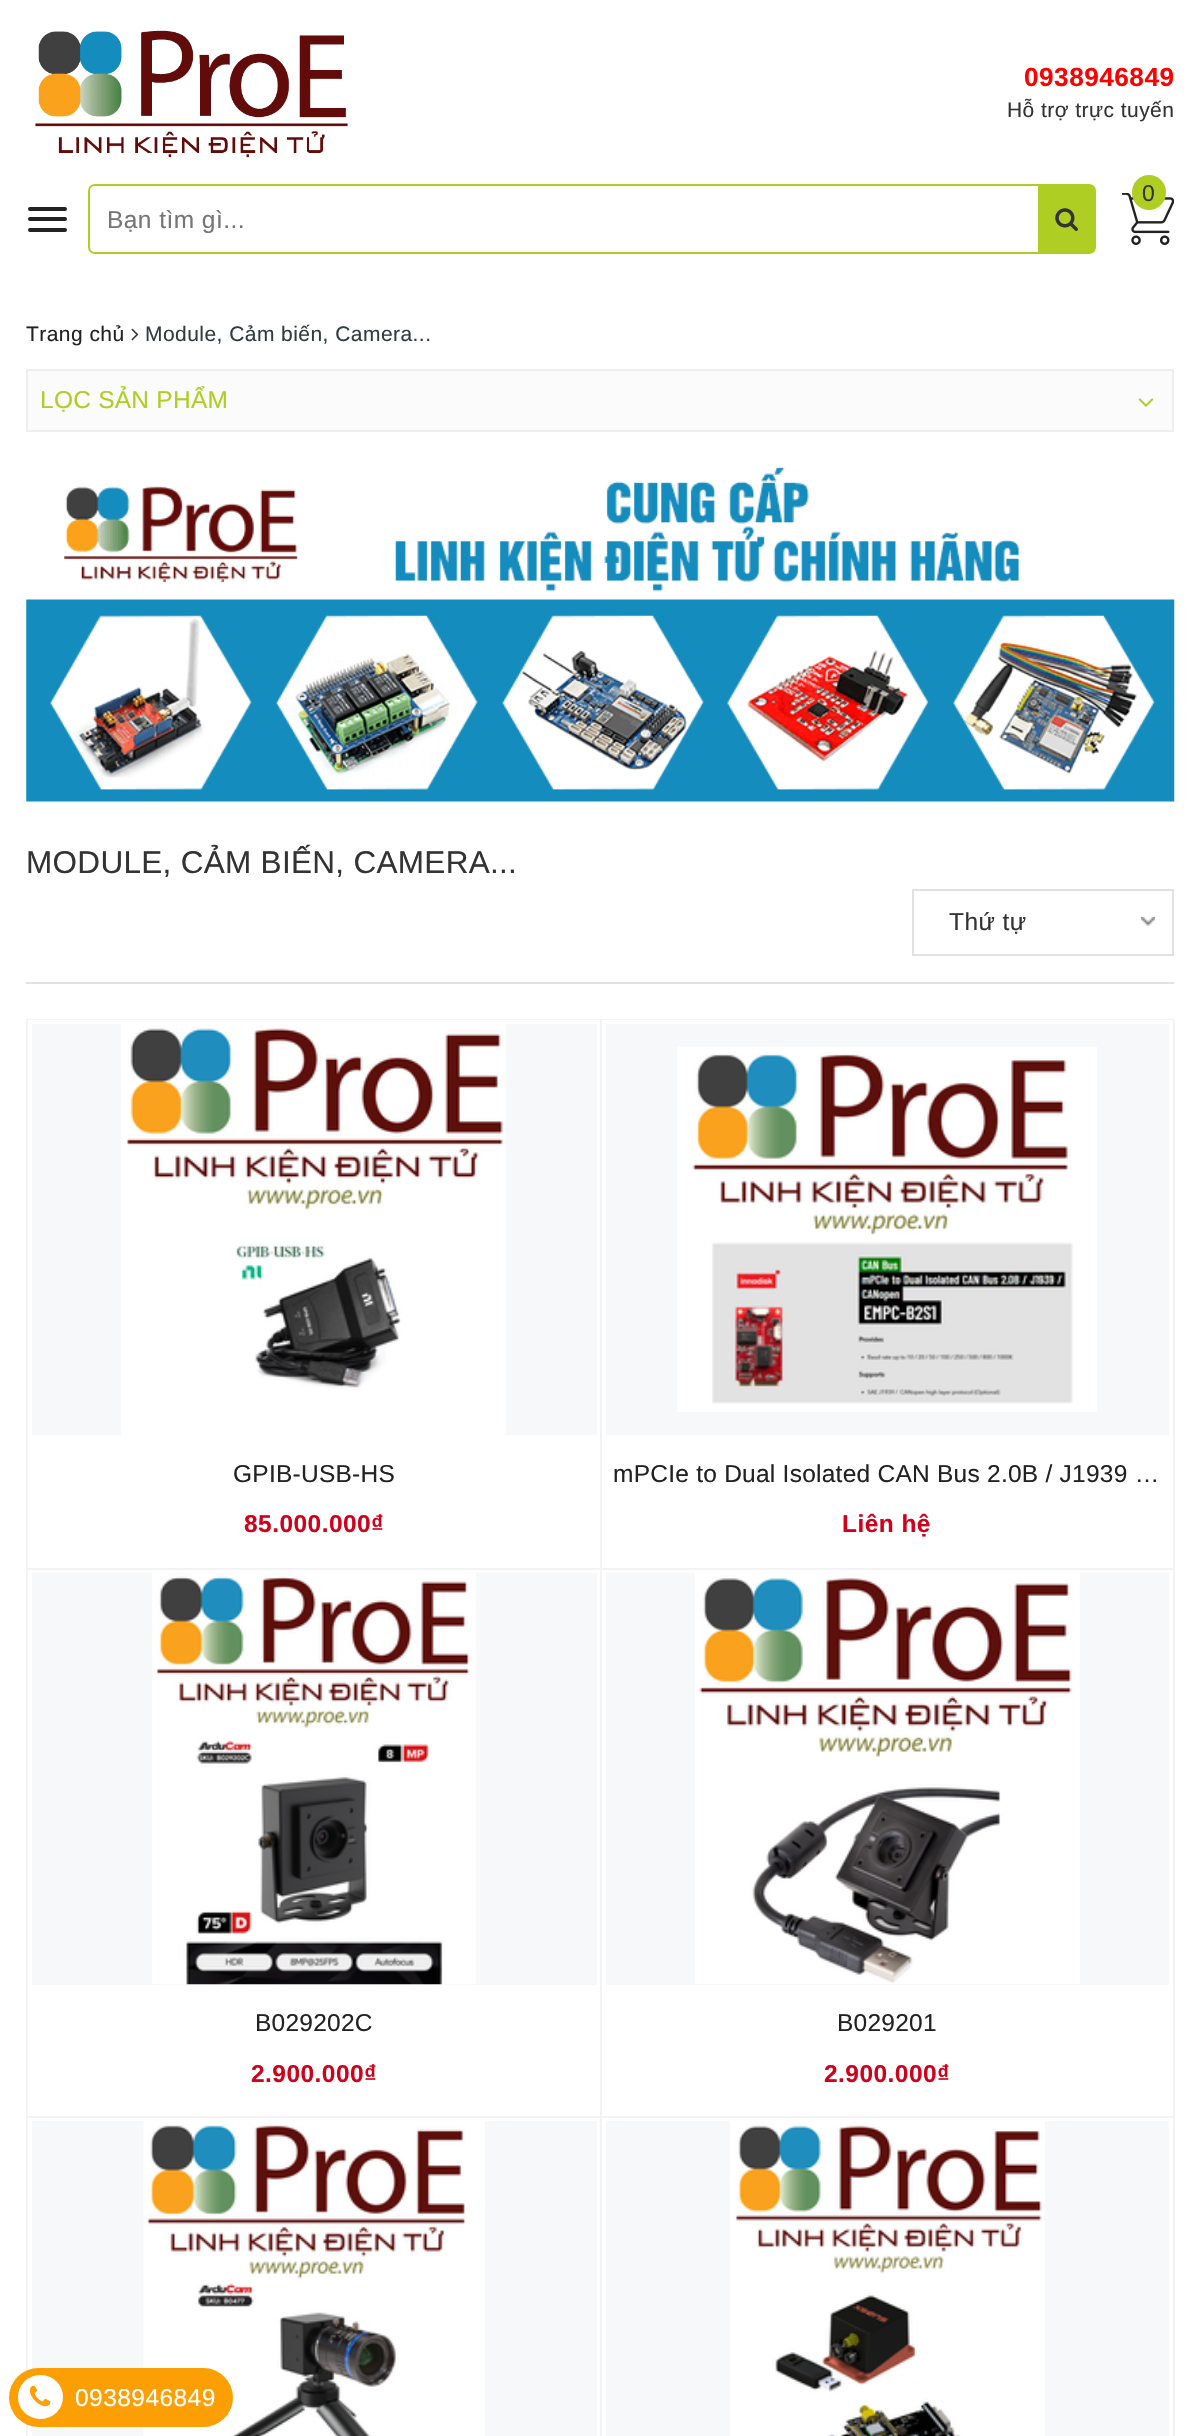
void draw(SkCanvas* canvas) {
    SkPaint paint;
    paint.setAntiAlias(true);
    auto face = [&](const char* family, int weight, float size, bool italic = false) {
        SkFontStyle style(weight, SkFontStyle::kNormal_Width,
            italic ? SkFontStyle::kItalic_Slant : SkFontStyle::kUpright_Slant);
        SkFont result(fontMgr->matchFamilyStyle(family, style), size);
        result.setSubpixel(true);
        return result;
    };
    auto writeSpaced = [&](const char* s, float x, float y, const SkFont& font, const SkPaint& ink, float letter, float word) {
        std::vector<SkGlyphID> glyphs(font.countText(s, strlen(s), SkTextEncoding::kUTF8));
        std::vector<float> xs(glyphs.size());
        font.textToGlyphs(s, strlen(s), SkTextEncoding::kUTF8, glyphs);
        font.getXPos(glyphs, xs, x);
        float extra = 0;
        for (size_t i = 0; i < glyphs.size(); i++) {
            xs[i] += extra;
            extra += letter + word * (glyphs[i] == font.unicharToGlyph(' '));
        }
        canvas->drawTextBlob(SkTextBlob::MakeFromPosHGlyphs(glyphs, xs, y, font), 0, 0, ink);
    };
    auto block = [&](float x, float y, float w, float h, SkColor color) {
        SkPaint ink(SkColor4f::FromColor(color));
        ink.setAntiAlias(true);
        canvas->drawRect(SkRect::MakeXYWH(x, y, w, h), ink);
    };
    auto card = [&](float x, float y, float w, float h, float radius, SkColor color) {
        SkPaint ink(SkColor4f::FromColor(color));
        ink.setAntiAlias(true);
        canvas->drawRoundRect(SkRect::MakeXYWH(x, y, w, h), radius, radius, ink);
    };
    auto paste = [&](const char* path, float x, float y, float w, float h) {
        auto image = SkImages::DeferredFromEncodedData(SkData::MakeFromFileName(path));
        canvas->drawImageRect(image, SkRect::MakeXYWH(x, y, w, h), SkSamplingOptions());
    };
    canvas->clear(SK_ColorWHITE);
    paste("pic1.png", 35, 30, 313, 128);
    auto kFont1 = face("Liberation Sans", 700, 26.25f);
    paint.setColor(SkColorSetRGB(255, 0, 0));
    writeSpaced("0938946849", 1024, 86, kFont1, paint, 0.45f, 0);
    auto kFont2 = face("Liberation Sans", 400, 21);
    paint.setColor(SkColorSetRGB(51, 51, 51));
    writeSpaced("Hỗ trợ trực tuyến", 1007, 117, kFont2, paint, 0.45f, 0);
    paste("pic2.png", 1122, 193, 52, 52);
    card(1132, 175, 34, 35, 17, SkColorSetRGB(175, 206, 36));
    auto kFont3 = face("Liberation Sans", 400, 23);
    writeSpaced("0", 1142, 201, kFont3, paint, 0.45f, 0);
    card(28, 207, 39, 4, 2, SkColorSetRGB(34, 34, 34));
    card(28, 217, 39, 4, 2, SkColorSetRGB(34, 34, 34));
    card(28, 228, 39, 4, 2, SkColorSetRGB(34, 34, 34));
    paint.setStyle(SkPaint::kStroke_Style);
    paint.setStrokeWidth(2);
    paint.setColor(SkColorSetRGB(175, 206, 36));
    canvas->drawPath(SkPathBuilder().moveTo(95, 185).lineTo(1039, 185).lineTo(1039, 253).lineTo(95, 253).cubicTo(91.5f, 253, 89, 250.5f, 89, 247).lineTo(89, 191).cubicTo(89, 187.5f, 91.5f, 185, 95, 185).close().detach(), paint);
    auto kFont4 = face("Liberation Sans", 400, 24.5f);
    paint.setStyle(SkPaint::kFill_Style);
    paint.setColor(SkColorSetRGB(117, 117, 117));
    writeSpaced("Bạn tìm gì...", 107, 228, kFont4, paint, 0.45f, 0);
    paint.setColor(SkColorSetRGB(175, 206, 36));
    canvas->drawPath(SkPathBuilder().moveTo(1038, 184).lineTo(1089, 184).cubicTo(1093, 184, 1096, 187, 1096, 191).lineTo(1096, 247).cubicTo(1096, 251, 1093, 254, 1089, 254).lineTo(1038, 254).close().detach(), paint);
    paste("pic3.png", 1055, 208, 23, 23);
    paint.setColor(SkColorSetRGB(34, 34, 34));
    writeSpaced("Trang chủ", 26, 341, kFont2, paint, 0.45f, 0);
    paste("pic4.png", 131, 328, 8, 13);
    paint.setColor(SkColorSetRGB(50, 60, 63));
    writeSpaced("Module, Cảm biến, Camera...", 145, 341, kFont2, paint, 0.45f, 0);
    paint.setColor(SkColorSetRGB(251, 251, 251));
    canvas->drawRect(SkRect::MakeXYWH(27, 370, 1146, 61), paint);
    paint.setStyle(SkPaint::kStroke_Style);
    paint.setColor(SkColorSetRGB(238, 238, 238));
    canvas->drawRect(SkRect::MakeXYWH(27, 370, 1146, 61), paint);
    paint.setStyle(SkPaint::kFill_Style);
    paint.setColor(SkColorSetRGB(175, 206, 36));
    writeSpaced("LỌC SẢN PHẨM", 40, 408, kFont4, paint, 0.25f, 0);
    paste("pic5.png", 1138, 398, 16, 9);
    paste("pic6.png", 26, 467, 1149, 335);
    auto kFont5 = face("Liberation Sans", 400, 31.5f);
    paint.setColor(SkColorSetRGB(51, 51, 51));
    writeSpaced("MODULE, CẢM BIẾN, CAMERA...", 26, 873, kFont5, paint, 0.3f, 0);
    block(26, 982, 1148, 2, SkColorSetRGB(225, 225, 225));
    paste("pic7.png", 1141, 917, 14, 9);
    paint.setStyle(SkPaint::kStroke_Style);
    paint.setColor(SkColorSetRGB(225, 225, 225));
    canvas->drawRect(SkRect::MakeXYWH(913, 890, 260, 65), paint);
    paint.setStyle(SkPaint::kFill_Style);
    paint.setColor(SkColorSetRGB(51, 51, 51));
    writeSpaced("Thứ tự", 949, 930, kFont4, paint, 0.45f, 0);
    block(26, 1019, 1148, 1, SkColorSetRGB(243, 243, 243));
    block(26, 1019, 2, 1417, SkColorSetRGB(243, 243, 243));
    block(600, 1020, 2, 1416, SkColorSetRGB(243, 243, 243));
    block(28, 1568, 574, 2, SkColorSetRGB(243, 243, 243));
    block(32, 1024, 565, 411, SkColorSetRGB(247, 248, 249));
    paste("pic8.png", 121, 1024, 385, 411);
    paint.setColor(SkColorSetRGB(34, 34, 34));
    writeSpaced("GPIB-USB-HS", 233, 1482, kFont4, paint, 0.25f, 0);
    auto kFont6 = face("Liberation Sans", 700, 24.5f);
    paint.setColor(SkColorSetRGB(208, 2, 27));
    writeSpaced("85.000.000₫", 244, 1532, kFont6, paint, 0.45f, 0);
    block(1173, 1020, 2, 1416, SkColorSetRGB(243, 243, 243));
    block(602, 1568, 572, 2, SkColorSetRGB(243, 243, 243));
    block(606, 1024, 563, 411, SkColorSetRGB(247, 248, 249));
    paste("pic9.png", 677, 1046, 420, 366);
    paint.setColor(SkColorSetRGB(34, 34, 34));
    writeSpaced("mPCIe to Dual Isolated CAN Bus 2.0B / J1939 …", 613, 1482, kFont4, paint, 0.25f, 0);
    paint.setColor(SkColorSetRGB(208, 2, 27));
    writeSpaced("Liên hệ", 842, 1532, kFont6, paint, 0.45f, 0);
    block(28, 2116, 1146, 2, SkColorSetRGB(243, 243, 243));
    block(32, 1573, 565, 412, SkColorSetRGB(247, 248, 249));
    paste("pic10.png", 152, 1573, 324, 412);
    paint.setColor(SkColorSetRGB(34, 34, 34));
    writeSpaced("B029202C", 255, 2031, kFont4, paint, 0.25f, 0);
    paint.setColor(SkColorSetRGB(208, 2, 27));
    writeSpaced("2.900.000₫", 251, 2082, kFont6, paint, 0.45f, 0);
    block(606, 1573, 563, 412, SkColorSetRGB(247, 248, 249));
    paste("pic11.png", 695, 1573, 385, 411);
    paint.setColor(SkColorSetRGB(34, 34, 34));
    writeSpaced("B029201", 837, 2031, kFont4, paint, 0.25f, 0);
    paint.setColor(SkColorSetRGB(208, 2, 27));
    writeSpaced("2.900.000₫", 824, 2082, kFont6, paint, 0.45f, 0);
    block(32, 2121, 565, 315, SkColorSetRGB(247, 248, 249));
    paste("pic12.png", 143, 2121, 342, 315);
    block(606, 2121, 563, 315, SkColorSetRGB(247, 248, 249));
    paste("pic13.png", 730, 2121, 315, 315);
    card(9, 2368, 224, 59, 29.5f, SkColorSetRGB(252, 159, 4));
    card(18, 2375, 45, 44, 22, SK_ColorWHITE);
    paste("pic14.png", 29, 2385, 22, 22);
    paint.setColor(SK_ColorWHITE);
    writeSpaced("0938946849", 75, 2406, kFont4, paint, 0.45f, 0);
}
